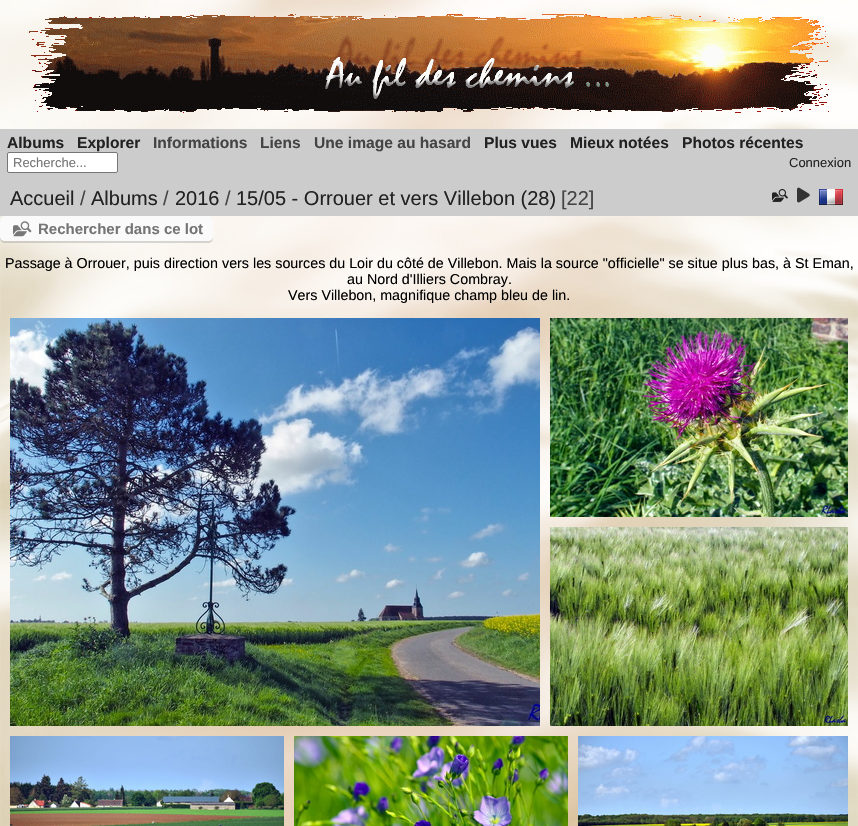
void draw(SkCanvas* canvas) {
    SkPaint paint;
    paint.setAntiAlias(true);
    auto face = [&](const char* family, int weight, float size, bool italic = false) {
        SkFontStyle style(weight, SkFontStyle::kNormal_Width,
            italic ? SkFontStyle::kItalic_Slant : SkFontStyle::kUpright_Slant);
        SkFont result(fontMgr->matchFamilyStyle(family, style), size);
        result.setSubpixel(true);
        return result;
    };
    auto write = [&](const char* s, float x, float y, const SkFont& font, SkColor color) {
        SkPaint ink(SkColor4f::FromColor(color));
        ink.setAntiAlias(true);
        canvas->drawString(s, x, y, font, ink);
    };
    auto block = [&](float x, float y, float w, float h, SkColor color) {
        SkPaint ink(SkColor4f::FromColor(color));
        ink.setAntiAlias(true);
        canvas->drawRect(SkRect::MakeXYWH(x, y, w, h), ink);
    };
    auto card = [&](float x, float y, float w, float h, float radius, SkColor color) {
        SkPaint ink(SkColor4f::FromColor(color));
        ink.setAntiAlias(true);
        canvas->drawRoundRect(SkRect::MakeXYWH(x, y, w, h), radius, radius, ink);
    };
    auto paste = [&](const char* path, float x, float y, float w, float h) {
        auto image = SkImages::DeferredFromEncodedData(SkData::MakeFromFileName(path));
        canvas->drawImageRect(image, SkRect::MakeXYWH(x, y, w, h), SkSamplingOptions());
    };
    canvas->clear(SK_ColorWHITE);
    paste("pic1.png", 0, 0, 858, 826);
    paste("pic2.png", 29, 14, 800, 99);
    block(0, 129, 858, 87, SkColorSetRGB(204, 204, 204));
    auto kFont1 = face("Liberation Sans", 700, 15.6f);
    write("Albums", 7, 148, kFont1, SkColorSetRGB(34, 34, 34));
    write("Explorer", 77, 148, kFont1, SkColorSetRGB(34, 34, 34));
    write("Informations", 153, 148, kFont1, SkColorSetRGB(68, 68, 68));
    write("Liens", 260, 148, kFont1, SkColorSetRGB(68, 68, 68));
    write("Une image au hasard", 314, 148, kFont1, SkColorSetRGB(68, 68, 68));
    write("Plus vues", 484, 148, kFont1, SkColorSetRGB(34, 34, 34));
    write("Mieux notées", 570, 148, kFont1, SkColorSetRGB(34, 34, 34));
    write("Photos récentes", 682, 148, kFont1, SkColorSetRGB(34, 34, 34));
    paint.setColor(SK_ColorWHITE);
    canvas->drawRoundRect(SkRect::MakeXYWH(7.5f, 152.5f, 110, 20), 1.5f, 1.5f, paint);
    paint.setStyle(SkPaint::kStroke_Style);
    paint.setStrokeWidth(1);
    paint.setColor(SkColorSetRGB(118, 118, 118));
    canvas->drawRoundRect(SkRect::MakeXYWH(7.5f, 152.5f, 110, 20), 1.5f, 1.5f, paint);
    auto kFont2 = face("Liberation Sans", 400, 13);
    write("Recherche...", 13, 167, kFont2, SkColorSetRGB(117, 117, 117));
    write("Connexion", 789, 167, kFont2, SkColorSetRGB(34, 34, 34));
    auto kFont3 = face("Liberation Sans", 400, 20);
    write("Accueil", 10, 205, kFont3, SkColorSetRGB(34, 34, 34));
    write("/", 80, 205, kFont3, SkColorSetRGB(68, 68, 68));
    write("Albums", 91, 205, kFont3, SkColorSetRGB(34, 34, 34));
    write("/", 163, 205, kFont3, SkColorSetRGB(68, 68, 68));
    write("2016", 175, 205, kFont3, SkColorSetRGB(34, 34, 34));
    write("/", 225, 205, kFont3, SkColorSetRGB(68, 68, 68));
    write("15/05 - Orrouer et vers Villebon (28)", 236, 205, kFont3, SkColorSetRGB(34, 34, 34));
    write("[22]", 561, 205, kFont3, SkColorSetRGB(68, 68, 68));
    paste("pic3.png", 772, 189, 16, 13);
    paste("pic4.png", 797, 187, 13, 16);
    paste("pic5.png", 819, 189, 24, 16);
    paint.setStyle(SkPaint::kFill_Style);
    paint.setColor(SkColorSetARGB(36, 0, 0, 0));
    canvas->drawPath(SkPathBuilder().moveTo(0, 236).lineTo(0, 238).cubicTo(0, 241, 2, 243, 5, 243).lineTo(208, 243).cubicTo(211, 243, 213, 241, 213, 238).lineTo(213, 236).cubicTo(213, 239, 211, 241, 208, 241).lineTo(5, 241).cubicTo(2, 241, 0, 239, 0, 236).close().detach(), paint);
    card(0, 216, 213, 25, 5, SkColorSetRGB(250, 250, 250));
    paste("pic6.png", 13, 221, 19, 16);
    auto kFont4 = face("Liberation Sans", 700, 15);
    write("Rechercher dans ce lot", 38, 234, kFont4, SkColorSetRGB(117, 117, 117));
    auto kFont5 = face("Liberation Sans", 400, 14.3f);
    write("Passage à Orrouer, puis direction vers les sources du Loir du côté de Villebon. Mais la source \"officielle\" se situe plus bas, à St Eman,", 5, 268, kFont5, SK_ColorBLACK);
    write("au Nord d'Illiers Combray.", 347, 284, kFont5, SK_ColorBLACK);
    write("Vers Villebon, magnifique champ bleu de lin.", 288, 300, kFont5, SK_ColorBLACK);
    paste("pic7.png", 10, 318, 530, 408);
    paste("pic8.png", 550, 318, 298, 199);
    paste("pic9.png", 550, 527, 298, 199);
    paste("pic10.png", 10, 736, 274, 90);
    paste("pic11.png", 294, 736, 274, 90);
    paste("pic12.png", 578, 736, 270, 90);
}
